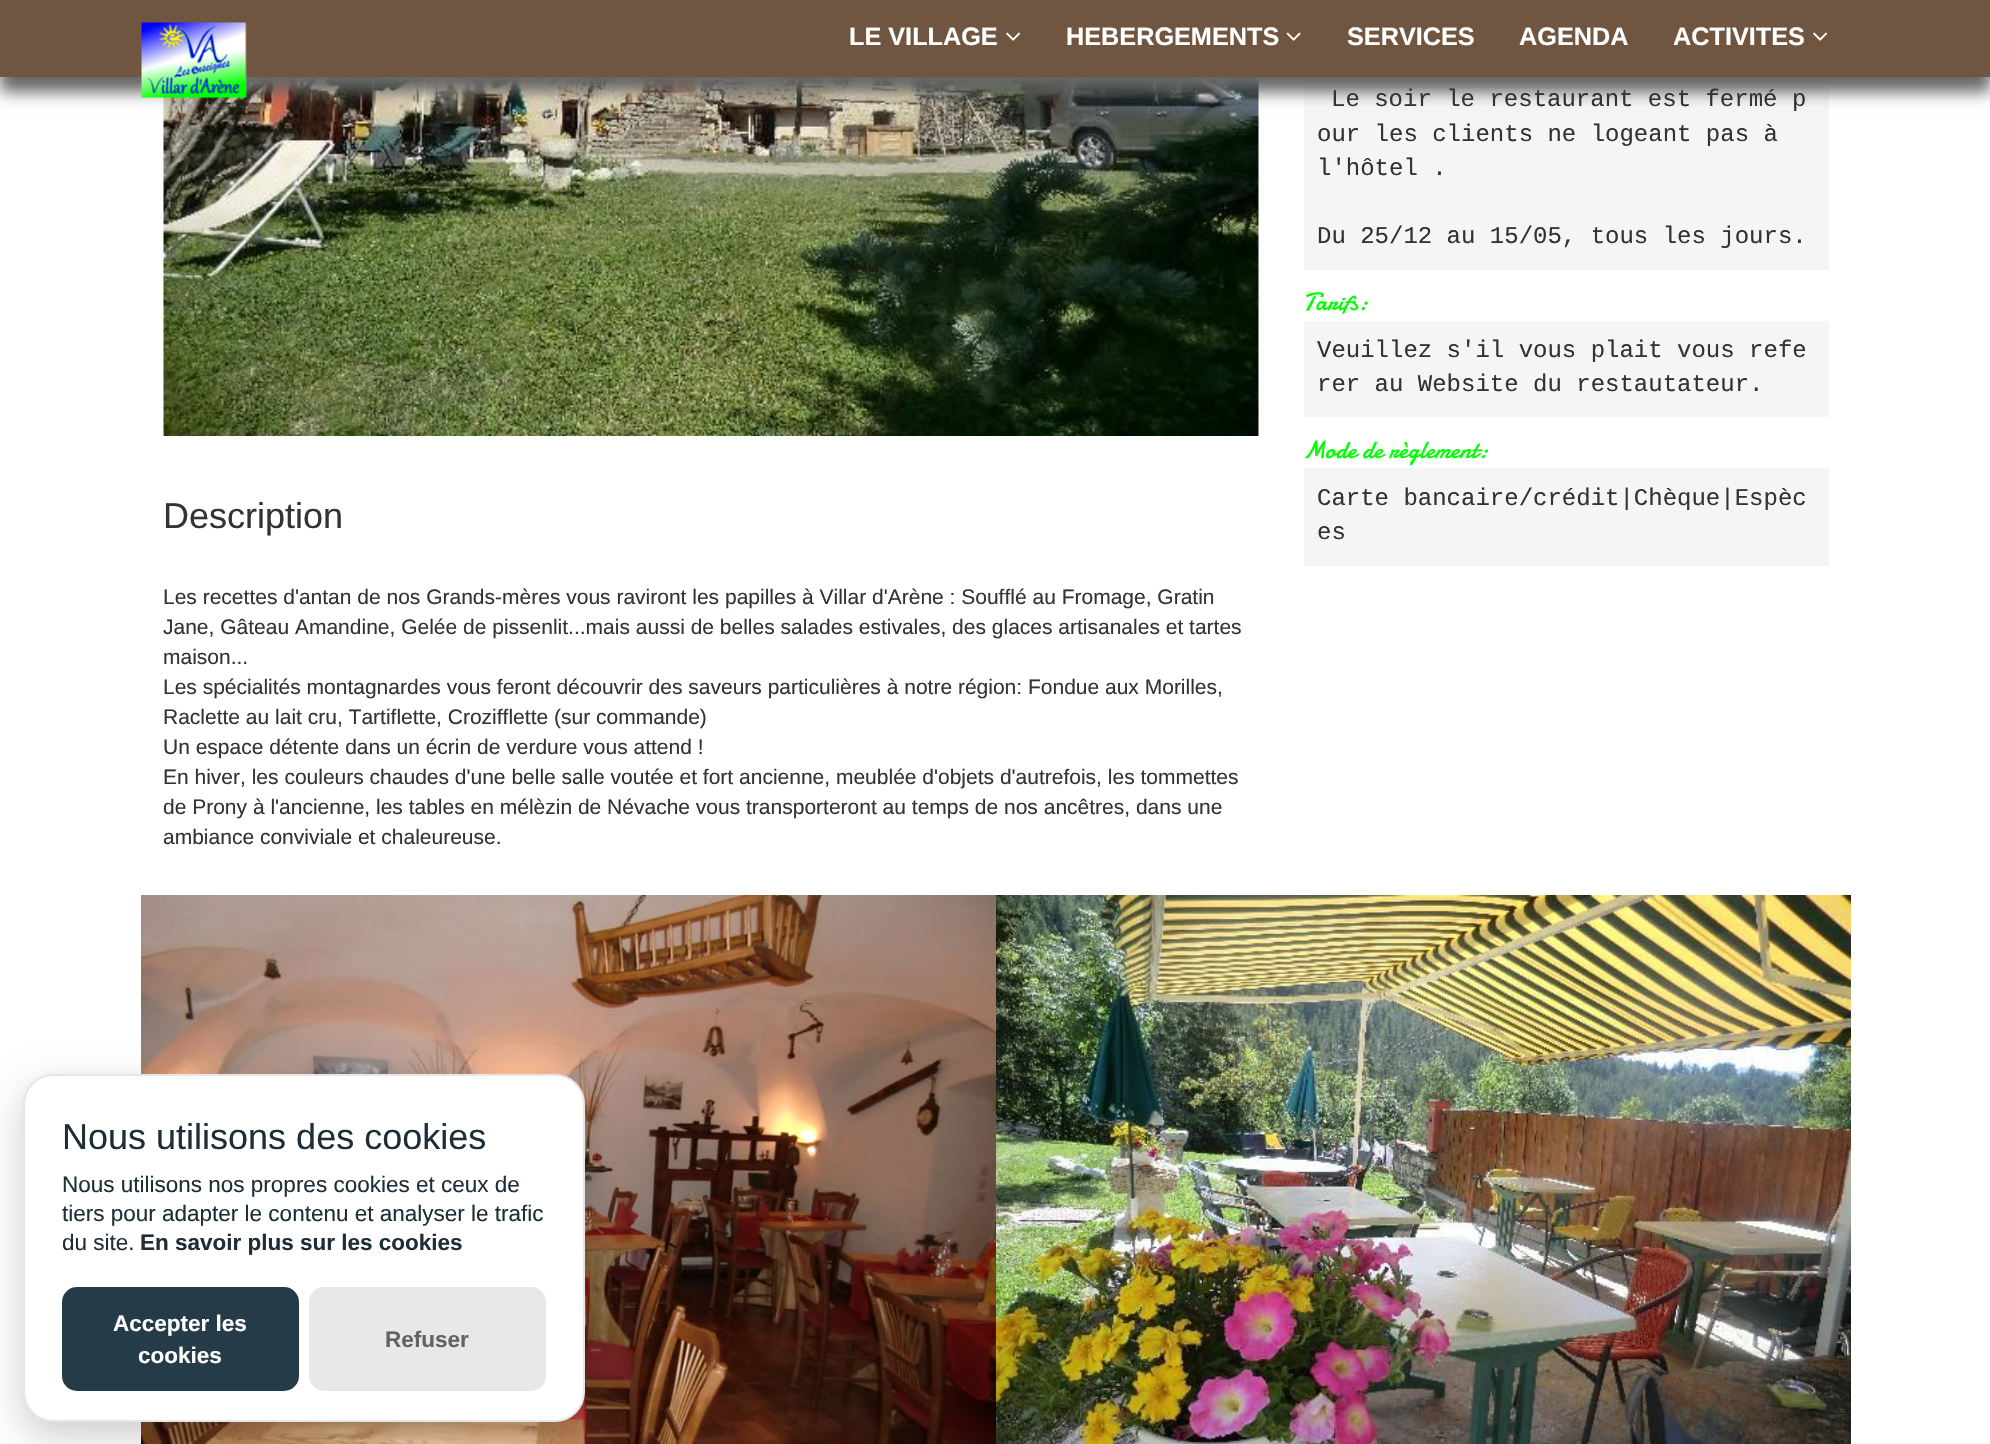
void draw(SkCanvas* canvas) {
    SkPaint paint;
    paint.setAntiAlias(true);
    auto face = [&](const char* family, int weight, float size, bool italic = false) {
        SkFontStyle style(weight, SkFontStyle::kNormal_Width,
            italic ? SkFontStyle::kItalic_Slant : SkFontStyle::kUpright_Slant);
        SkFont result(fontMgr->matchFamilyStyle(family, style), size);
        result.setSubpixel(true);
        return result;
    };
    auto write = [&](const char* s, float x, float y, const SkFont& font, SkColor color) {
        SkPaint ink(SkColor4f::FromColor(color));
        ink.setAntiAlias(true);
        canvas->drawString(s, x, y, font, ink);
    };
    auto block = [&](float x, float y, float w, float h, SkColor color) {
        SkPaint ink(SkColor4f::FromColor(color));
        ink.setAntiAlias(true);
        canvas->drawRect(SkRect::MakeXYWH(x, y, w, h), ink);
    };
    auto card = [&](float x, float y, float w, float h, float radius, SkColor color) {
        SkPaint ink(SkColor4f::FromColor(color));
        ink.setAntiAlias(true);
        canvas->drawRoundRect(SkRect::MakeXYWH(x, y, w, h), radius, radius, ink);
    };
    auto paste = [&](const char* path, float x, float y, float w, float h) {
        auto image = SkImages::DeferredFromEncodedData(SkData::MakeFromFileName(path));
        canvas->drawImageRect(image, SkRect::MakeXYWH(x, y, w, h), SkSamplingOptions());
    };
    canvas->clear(SK_ColorWHITE);
    block(1304, 77, 525, 193, SkColorSetRGB(245, 245, 245));
    paste("pic4.png", 163, 77, 1096, 359);
    paint.setColor(SkColorSetRGB(102, 102, 102));
    paint.setMaskFilter(SkMaskFilter::MakeBlur(kNormal_SkBlurStyle, 7.5f));
    canvas->drawRect(SkRect::MakeXYWH(0, 15, 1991, 77), paint);
    paint.setMaskFilter(nullptr);
    block(0, 0, 1990, 77, SkColorSetRGB(112, 85, 64));
    paste("pic1.png", 141, 22, 106, 76);
    auto kFont1 = face("Liberation Sans", 700, 25.25f);
    write("LE VILLAGE", 849, 45, kFont1, SK_ColorWHITE);
    paste("pic2.png", 1006, 32, 15, 9);
    write("HEBERGEMENTS", 1066, 45, kFont1, SK_ColorWHITE);
    paste("pic3.png", 1286, 32, 15, 9);
    write("SERVICES", 1347, 45, kFont1, SK_ColorWHITE);
    write("AGENDA", 1519, 45, kFont1, SK_ColorWHITE);
    write("ACTIVITES", 1673, 45, kFont1, SK_ColorWHITE);
    paste("pic2.png", 1813, 32, 15, 9);
    auto kFont2 = face("Liberation Mono", 400, 24);
    write("Le soir le restaurant est fermé p", 1331, 106, kFont2, SkColorSetRGB(51, 51, 51));
    write("our les clients ne logeant pas à", 1317, 141, kFont2, SkColorSetRGB(51, 51, 51));
    write("l'hôtel .", 1317, 175, kFont2, SkColorSetRGB(51, 51, 51));
    write("Du 25/12 au 15/05, tous les jours.", 1317, 243, kFont2, SkColorSetRGB(51, 51, 51));
    auto kFont3 = face("Damion", 400, 25.25f);
    write("Tarifs:", 1303, 310, kFont3, SkColorSetRGB(0, 255, 0));
    block(1304, 321, 525, 96, SkColorSetRGB(245, 245, 245));
    write("Veuillez s'il vous plait vous refe", 1317, 357, kFont2, SkColorSetRGB(51, 51, 51));
    write("rer au Website du restautateur.", 1317, 391, kFont2, SkColorSetRGB(51, 51, 51));
    write("Mode de règlement:", 1303, 458, kFont3, SkColorSetRGB(0, 255, 0));
    block(1304, 468, 525, 98, SkColorSetRGB(245, 245, 245));
    write("Carte bancaire/crédit|Chèque|Espèc", 1317, 505, kFont2, SkColorSetRGB(51, 51, 51));
    write("es", 1317, 539, kFont2, SkColorSetRGB(51, 51, 51));
    auto kFont4 = face("Liberation Sans", 400, 36);
    write("Description", 163, 528, kFont4, SkColorSetRGB(51, 51, 51));
    auto kFont5 = face("Liberation Sans", 400, 21);
    write("Les recettes d'antan de nos Grands-mères vous raviront les papilles à Villar d'Arène : Soufflé au Fromage, Gratin", 163, 604, kFont5, SkColorSetRGB(51, 51, 51));
    write("Jane, Gâteau Amandine, Gelée de pissenlit...mais aussi de belles salades estivales, des glaces artisanales et tartes", 163, 634, kFont5, SkColorSetRGB(51, 51, 51));
    write("maison...", 163, 664, kFont5, SkColorSetRGB(51, 51, 51));
    write("Les spécialités montagnardes vous feront découvrir des saveurs particulières à notre région: Fondue aux Morilles,", 163, 694, kFont5, SkColorSetRGB(51, 51, 51));
    write("Raclette au lait cru, Tartiflette, Crozifflette (sur commande)", 163, 724, kFont5, SkColorSetRGB(51, 51, 51));
    write("Un espace détente dans un écrin de verdure vous attend !", 163, 754, kFont5, SkColorSetRGB(51, 51, 51));
    write("En hiver, les couleurs chaudes d'une belle salle voutée et fort ancienne, meublée d'objets d'autrefois, les tommettes", 163, 784, kFont5, SkColorSetRGB(51, 51, 51));
    write("de Prony à l'ancienne, les tables en mélèzin de Névache vous transporteront au temps de nos ancêtres, dans une", 163, 814, kFont5, SkColorSetRGB(51, 51, 51));
    write("ambiance conviviale et chaleureuse.", 163, 844, kFont5, SkColorSetRGB(51, 51, 51));
    paste("pic5.png", 141, 895, 855, 549);
    paste("pic6.png", 996, 895, 855, 549);
    paint.setColor(SkColorSetARGB(51, 2, 2, 3));
    paint.setMaskFilter(SkMaskFilter::MakeBlur(kNormal_SkBlurStyle, 19.5f));
    canvas->drawRoundRect(SkRect::MakeXYWH(23, 1088, 562, 348), 30, 30, paint);
    paint.setMaskFilter(nullptr);
    paint.setColor(SK_ColorWHITE);
    canvas->drawRoundRect(SkRect::MakeXYWH(24, 1075, 560, 346), 29, 29, paint);
    paint.setStyle(SkPaint::kStroke_Style);
    paint.setStrokeWidth(2);
    paint.setColor(SkColorSetRGB(230, 230, 230));
    canvas->drawRoundRect(SkRect::MakeXYWH(24, 1075, 560, 346), 29, 29, paint);
    write("Nous utilisons des cookies", 62, 1149, kFont4, SkColorSetRGB(29, 46, 56));
    auto kFont6 = face("Liberation Sans", 400, 22.5f);
    write("Nous utilisons nos propres cookies et ceux de", 62, 1192, kFont6, SkColorSetRGB(29, 46, 56));
    write("tiers pour adapter le contenu et analyser le trafic", 62, 1221, kFont6, SkColorSetRGB(29, 46, 56));
    write("du site.", 62, 1250, kFont6, SkColorSetRGB(29, 46, 56));
    auto kFont7 = face("Liberation Sans", 700, 22.5f);
    write("En savoir plus sur les cookies", 140, 1250, kFont7, SkColorSetRGB(29, 46, 56));
    card(62, 1287, 237, 104, 15, SkColorSetRGB(37, 59, 72));
    write("Accepter les", 113, 1331, kFont7, SK_ColorWHITE);
    write("cookies", 138, 1363, kFont7, SK_ColorWHITE);
    card(309, 1287, 237, 104, 15, SkColorSetRGB(232, 232, 232));
    write("Refuser", 385, 1347, kFont7, SkColorSetRGB(99, 99, 99));
}
